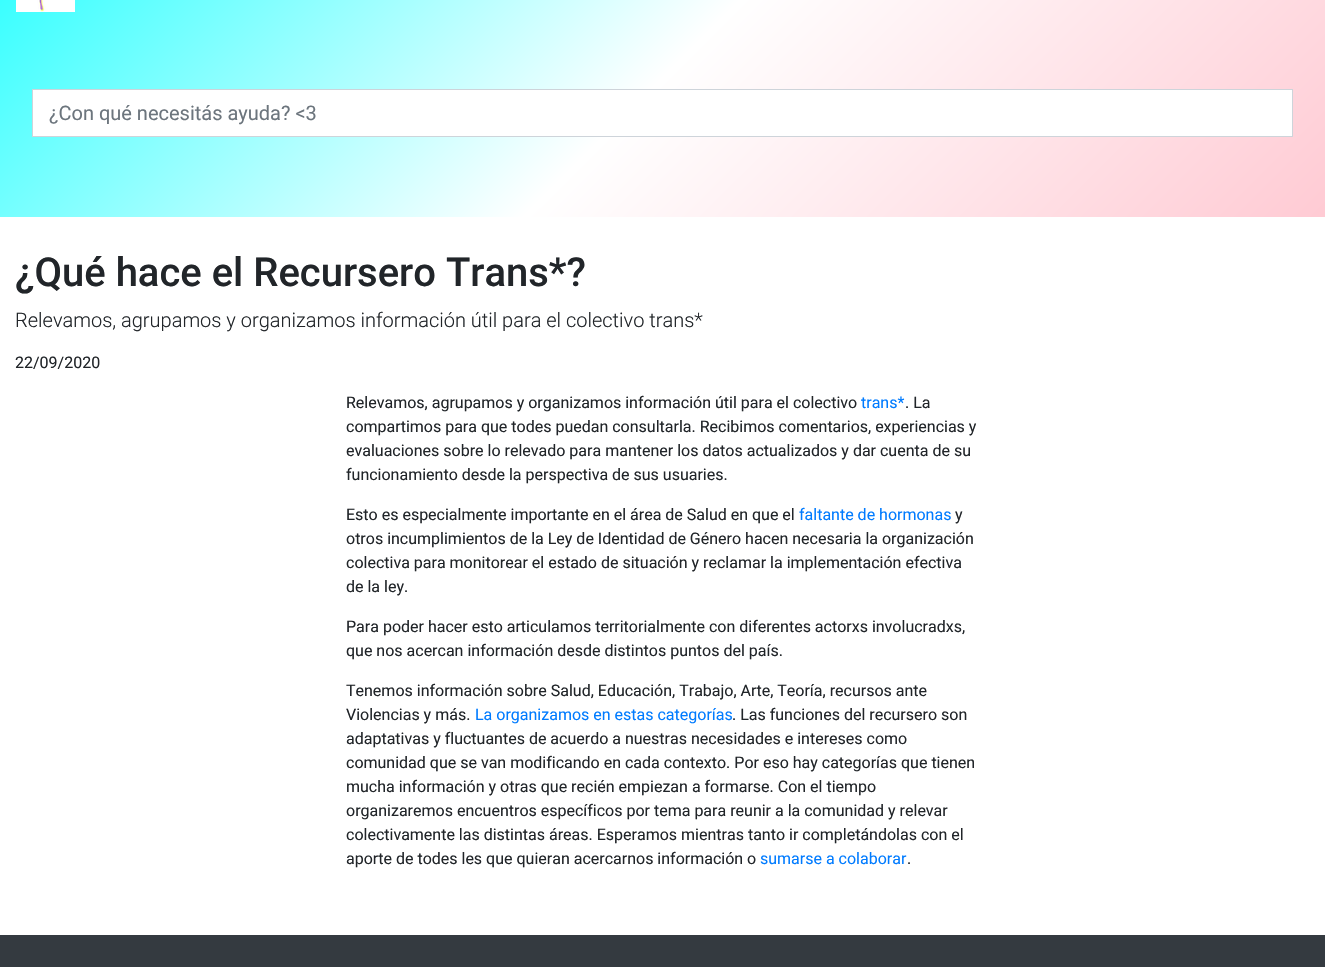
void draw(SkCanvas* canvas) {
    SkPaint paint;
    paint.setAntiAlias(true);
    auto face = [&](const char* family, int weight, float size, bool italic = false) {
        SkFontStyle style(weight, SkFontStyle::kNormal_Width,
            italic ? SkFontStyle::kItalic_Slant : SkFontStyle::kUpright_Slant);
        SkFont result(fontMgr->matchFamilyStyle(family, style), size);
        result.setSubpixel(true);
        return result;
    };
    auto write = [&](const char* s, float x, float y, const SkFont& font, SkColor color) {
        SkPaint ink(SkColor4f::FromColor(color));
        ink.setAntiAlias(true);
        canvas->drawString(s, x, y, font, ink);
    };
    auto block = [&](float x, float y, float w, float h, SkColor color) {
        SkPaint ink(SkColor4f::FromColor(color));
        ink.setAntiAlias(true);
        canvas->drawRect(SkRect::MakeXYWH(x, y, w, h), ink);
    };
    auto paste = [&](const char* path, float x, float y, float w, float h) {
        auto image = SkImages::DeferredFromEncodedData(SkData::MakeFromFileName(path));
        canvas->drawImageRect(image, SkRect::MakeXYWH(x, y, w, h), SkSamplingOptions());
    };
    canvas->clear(SK_ColorWHITE);
    {
        const SkColor colors[] = {SkColorSetRGB(255, 192, 203), SK_ColorWHITE, SkColorSetRGB(0, 255, 255)};
        const float stops[] = {0, 0.5f, 1};
        const SkPoint ends[] = {{1143, 559}, {182, -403}};
        paint.setShader(SkGradientShader::MakeLinear(ends, colors, stops, 3, SkTileMode::kClamp));
        paint.setAlpha(255);
    }
    canvas->drawRect(SkRect::MakeXYWH(0, 0, 1325, 217), paint);
    paste("pic1.png", 16, 0, 59, 12);
    paint.setShader(nullptr);
    paint.setColor(SK_ColorWHITE);
    canvas->drawRect(SkRect::MakeXYWH(32.5f, 89.5f, 1260, 47), paint);
    paint.setStyle(SkPaint::kStroke_Style);
    paint.setStrokeWidth(1);
    paint.setColor(SkColorSetRGB(206, 212, 218));
    canvas->drawRect(SkRect::MakeXYWH(32.5f, 89.5f, 1260, 47), paint);
    auto kFont1 = face("Roboto", 400, 20);
    write("¿Con qué necesitás ayuda? <3", 49, 120, kFont1, SkColorSetRGB(108, 117, 125));
    auto kFont2 = face("Roboto", 500, 40);
    write("¿Qué hace el Recursero Trans*?", 15, 286, kFont2, SkColorSetRGB(33, 37, 41));
    auto kFont3 = face("Roboto", 300, 20);
    write("Relevamos, agrupamos y organizamos información útil para el colectivo trans*", 15, 327, kFont3, SkColorSetRGB(33, 37, 41));
    auto kFont4 = face("Roboto", 400, 16);
    write("22/09/2020", 15, 368, kFont4, SkColorSetRGB(33, 37, 41));
    write("Relevamos, agrupamos y organizamos información útil para el colectivo", 346, 408, kFont4, SkColorSetRGB(33, 37, 41));
    write("trans*", 861, 408, kFont4, SkColorSetRGB(0, 123, 255));
    write(". La", 905, 408, kFont4, SkColorSetRGB(33, 37, 41));
    write("compartimos para que todes puedan consultarla. Recibimos comentarios, experiencias y", 346, 432, kFont4, SkColorSetRGB(33, 37, 41));
    write("evaluaciones sobre lo relevado para mantener los datos actualizados y dar cuenta de su", 346, 456, kFont4, SkColorSetRGB(33, 37, 41));
    write("funcionamiento desde la perspectiva de sus usuaries.", 346, 480, kFont4, SkColorSetRGB(33, 37, 41));
    write("Esto es especialmente importante en el área de Salud en que el", 346, 520, kFont4, SkColorSetRGB(33, 37, 41));
    write("faltante de hormonas", 799, 520, kFont4, SkColorSetRGB(0, 123, 255));
    write("y", 955, 520, kFont4, SkColorSetRGB(33, 37, 41));
    write("otros incumplimientos de la Ley de Identidad de Género hacen necesaria la organización", 346, 544, kFont4, SkColorSetRGB(33, 37, 41));
    write("colectiva para monitorear el estado de situación y reclamar la implementación efectiva", 346, 568, kFont4, SkColorSetRGB(33, 37, 41));
    write("de la ley.", 346, 592, kFont4, SkColorSetRGB(33, 37, 41));
    write("Para poder hacer esto articulamos territorialmente con diferentes actorxs involucradxs,", 346, 632, kFont4, SkColorSetRGB(33, 37, 41));
    write("que nos acercan información desde distintos puntos del país.", 346, 656, kFont4, SkColorSetRGB(33, 37, 41));
    write("Tenemos información sobre Salud, Educación, Trabajo, Arte, Teoría, recursos ante", 346, 696, kFont4, SkColorSetRGB(33, 37, 41));
    write("Violencias y más.", 346, 720, kFont4, SkColorSetRGB(33, 37, 41));
    write("La organizamos en estas categorías", 475, 720, kFont4, SkColorSetRGB(0, 123, 255));
    write(". Las funciones del recursero son", 732, 720, kFont4, SkColorSetRGB(33, 37, 41));
    write("adaptativas y fluctuantes de acuerdo a nuestras necesidades e intereses como", 346, 744, kFont4, SkColorSetRGB(33, 37, 41));
    write("comunidad que se van modificando en cada contexto. Por eso hay categorías que tienen", 346, 768, kFont4, SkColorSetRGB(33, 37, 41));
    write("mucha información y otras que recién empiezan a formarse. Con el tiempo", 346, 792, kFont4, SkColorSetRGB(33, 37, 41));
    write("organizaremos encuentros específicos por tema para reunir a la comunidad y relevar", 346, 816, kFont4, SkColorSetRGB(33, 37, 41));
    write("colectivamente las distintas áreas. Esperamos mientras tanto ir completándolas con el", 346, 840, kFont4, SkColorSetRGB(33, 37, 41));
    write("aporte de todes les que quieran acercarnos información o", 346, 864, kFont4, SkColorSetRGB(33, 37, 41));
    write("sumarse a colaborar", 760, 864, kFont4, SkColorSetRGB(0, 123, 255));
    write(".", 907, 864, kFont4, SkColorSetRGB(33, 37, 41));
    block(0, 935, 1325, 32, SkColorSetRGB(52, 58, 64));
}
